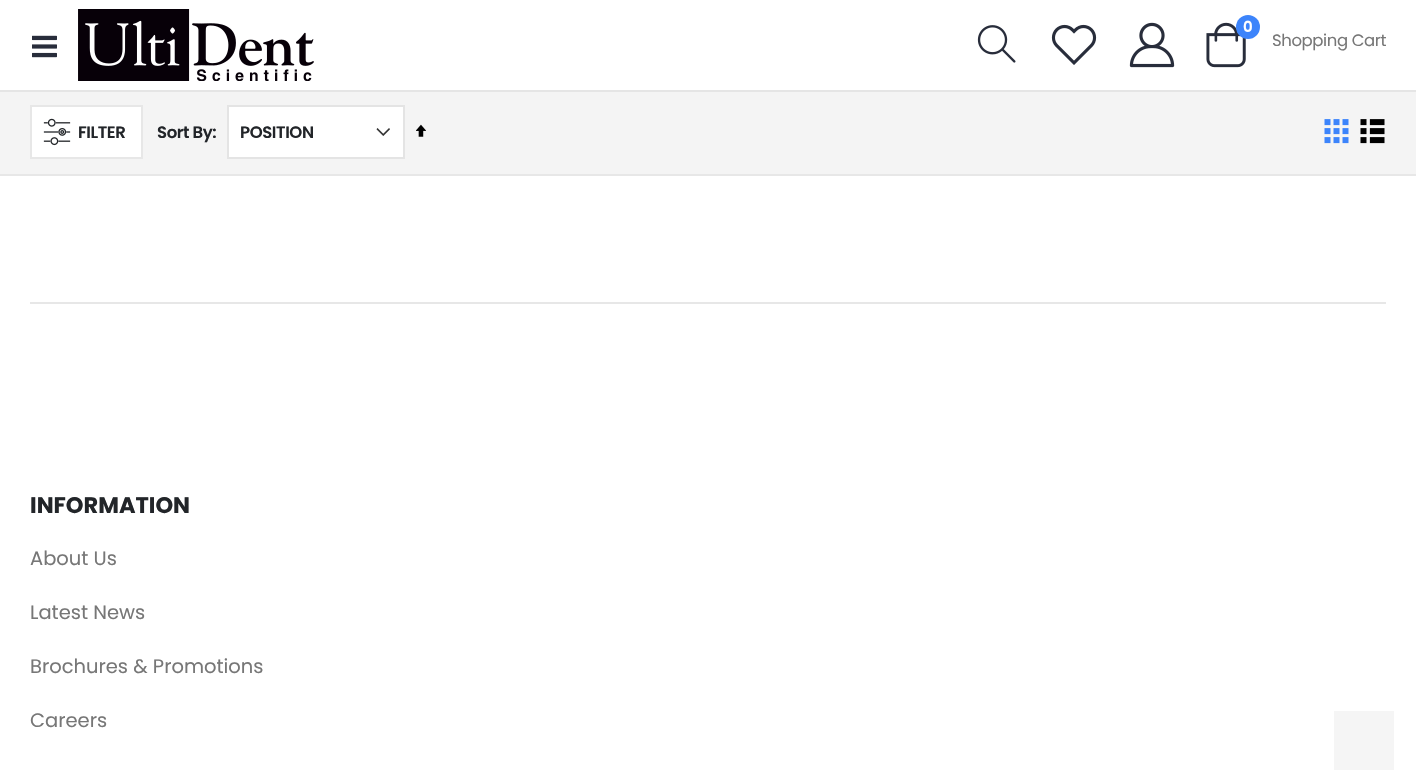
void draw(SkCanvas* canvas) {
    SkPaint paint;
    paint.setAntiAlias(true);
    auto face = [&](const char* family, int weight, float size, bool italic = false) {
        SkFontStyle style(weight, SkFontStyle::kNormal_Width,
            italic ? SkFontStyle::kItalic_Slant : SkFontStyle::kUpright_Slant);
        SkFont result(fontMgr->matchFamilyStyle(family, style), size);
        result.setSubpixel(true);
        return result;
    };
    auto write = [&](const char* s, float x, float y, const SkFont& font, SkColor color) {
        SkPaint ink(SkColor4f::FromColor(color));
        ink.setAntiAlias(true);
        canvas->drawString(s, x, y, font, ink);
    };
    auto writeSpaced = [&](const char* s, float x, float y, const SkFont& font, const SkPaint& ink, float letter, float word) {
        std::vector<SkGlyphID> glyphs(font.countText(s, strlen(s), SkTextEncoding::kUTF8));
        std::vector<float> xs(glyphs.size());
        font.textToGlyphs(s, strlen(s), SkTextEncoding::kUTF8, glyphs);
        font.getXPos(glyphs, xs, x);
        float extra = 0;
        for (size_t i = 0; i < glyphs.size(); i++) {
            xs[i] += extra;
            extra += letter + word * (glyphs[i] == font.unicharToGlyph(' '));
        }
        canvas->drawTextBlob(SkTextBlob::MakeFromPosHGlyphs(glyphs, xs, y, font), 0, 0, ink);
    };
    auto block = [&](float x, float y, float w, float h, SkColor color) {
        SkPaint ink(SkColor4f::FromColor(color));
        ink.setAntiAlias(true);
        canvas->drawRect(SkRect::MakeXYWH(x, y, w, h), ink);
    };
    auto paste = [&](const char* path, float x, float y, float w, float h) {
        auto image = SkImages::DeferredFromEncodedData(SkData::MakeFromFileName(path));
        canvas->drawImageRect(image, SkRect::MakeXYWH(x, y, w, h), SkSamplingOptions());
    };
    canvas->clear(SK_ColorWHITE);
    block(0, 90, 1416, 2, SkColorSetRGB(229, 229, 229));
    paste("pic1.png", 32, 35, 25, 23);
    paste("pic2.png", 78, 9, 236, 72);
    paste("pic3.png", 977, 25, 39, 38);
    paste("pic4.png", 1051, 24, 46, 41);
    paste("pic5.png", 1129, 22, 46, 46);
    paste("pic6.png", 1206, 22, 40, 46);
    paint.setColor(SkColorSetRGB(60, 132, 251));
    canvas->drawCircle(1248, 27, 12, paint);
    auto kFont1 = face("Poppins", 600, 15);
    write("0", 1243, 32, kFont1, SK_ColorWHITE);
    auto kFont2 = face("Poppins", 400, 16.5f);
    paint.setColor(SkColorSetRGB(119, 119, 119));
    writeSpaced("Shopping Cart", 1272, 46, kFont2, paint, -0.4f, 0);
    block(0, 92, 1416, 82, SkColorSetRGB(244, 244, 244));
    block(0, 174, 1416, 2, SkColorSetRGB(231, 231, 231));
    paint.setColor(SK_ColorWHITE);
    canvas->drawRect(SkRect::MakeXYWH(31, 106, 111, 52), paint);
    paint.setStyle(SkPaint::kStroke_Style);
    paint.setStrokeWidth(2);
    paint.setColor(SkColorSetRGB(231, 231, 231));
    canvas->drawRect(SkRect::MakeXYWH(31, 106, 111, 52), paint);
    paste("pic7.png", 43, 118, 28, 28);
    auto kFont3 = face("Poppins", 600, 16.5f);
    paint.setStyle(SkPaint::kFill_Style);
    paint.setColor(SkColorSetRGB(34, 37, 41));
    writeSpaced("FILTER", 78, 138, kFont3, paint, -0.4f, 0);
    writeSpaced("Sort By:", 157, 138, kFont3, paint, -0.4f, 0);
    block(229, 107, 174, 50, SK_ColorWHITE);
    paste("pic8.png", 376, 128, 14, 8);
    paint.setStyle(SkPaint::kStroke_Style);
    paint.setColor(SkColorSetRGB(228, 228, 228));
    canvas->drawRect(SkRect::MakeXYWH(228, 106, 176, 52), paint);
    paint.setStyle(SkPaint::kFill_Style);
    paint.setColor(SkColorSetRGB(34, 37, 41));
    writeSpaced("POSITION", 240, 138, kFont3, paint, -0.4f, 0);
    paste("pic9.png", 416, 124, 10, 13);
    paste("pic10.png", 1324, 119, 25, 25);
    paste("pic11.png", 1360, 119, 25, 25);
    block(30, 302, 1356, 2, SkColorSetRGB(231, 231, 231));
    auto kFont4 = face("Poppins", 700, 22.5f);
    write("INFORMATION", 30, 513, kFont4, SkColorSetRGB(34, 37, 41));
    auto kFont5 = face("Poppins", 400, 19.5f);
    write("About Us", 30, 565, kFont5, SkColorSetRGB(119, 119, 119));
    write("Latest News", 30, 619, kFont5, SkColorSetRGB(119, 119, 119));
    write("Brochures & Promotions", 30, 673, kFont5, SkColorSetRGB(119, 119, 119));
    write("Careers", 30, 727, kFont5, SkColorSetRGB(119, 119, 119));
    block(1334, 711, 60, 59, SkColorSetRGB(245, 245, 245));
}
